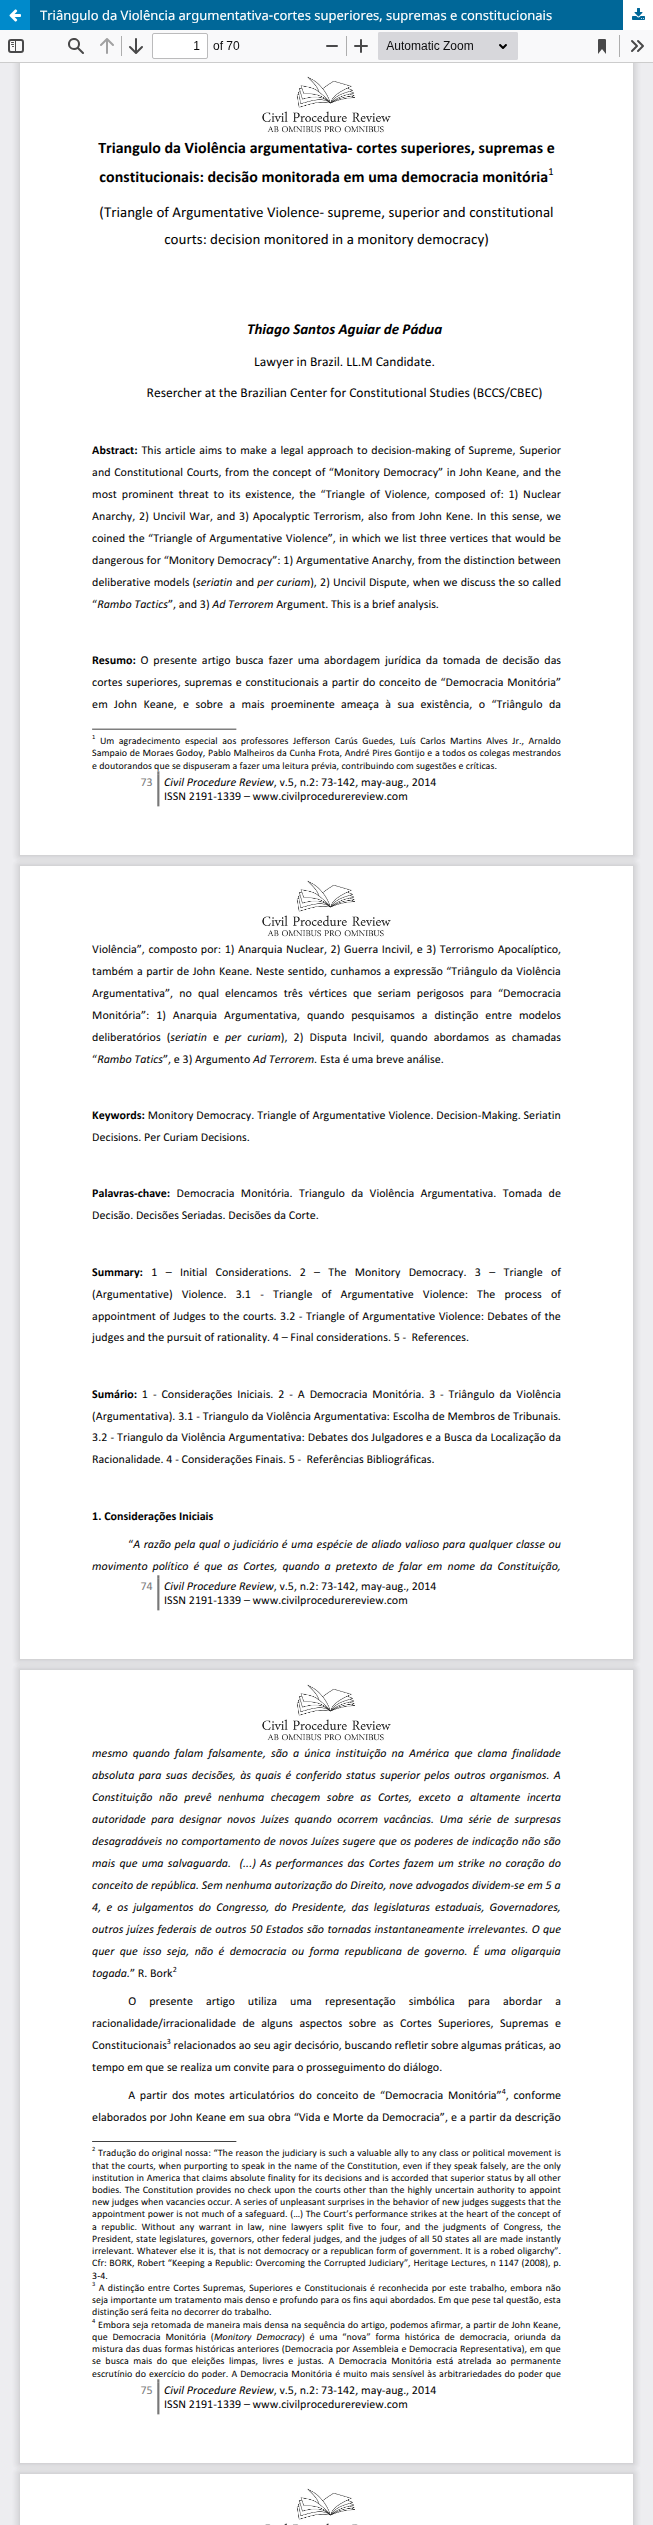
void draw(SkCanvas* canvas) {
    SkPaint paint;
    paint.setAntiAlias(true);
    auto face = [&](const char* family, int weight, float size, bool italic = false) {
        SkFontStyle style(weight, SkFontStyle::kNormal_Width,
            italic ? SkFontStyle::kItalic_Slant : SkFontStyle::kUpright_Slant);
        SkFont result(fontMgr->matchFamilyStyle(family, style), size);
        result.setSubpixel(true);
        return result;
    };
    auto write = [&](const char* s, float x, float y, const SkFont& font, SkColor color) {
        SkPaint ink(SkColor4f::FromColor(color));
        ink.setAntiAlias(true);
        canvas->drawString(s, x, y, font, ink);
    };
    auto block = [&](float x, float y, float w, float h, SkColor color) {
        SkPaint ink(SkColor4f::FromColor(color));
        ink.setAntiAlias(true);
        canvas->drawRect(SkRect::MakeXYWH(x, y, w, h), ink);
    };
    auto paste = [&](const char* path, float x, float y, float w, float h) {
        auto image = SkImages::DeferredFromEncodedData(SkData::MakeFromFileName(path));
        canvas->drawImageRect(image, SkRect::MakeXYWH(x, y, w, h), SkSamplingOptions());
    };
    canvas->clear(SK_ColorWHITE);
    block(30, 0, 593, 30, SkColorSetRGB(0, 103, 152));
    block(0, 0, 30, 30, SkColorSetRGB(0, 138, 203));
    paste("pic1.png", 9, 9, 12, 13);
    auto kFont1 = face("Noto Sans", 400, 13);
    write("Triângulo da Violência argumentativa-cortes superiores, supremas e constitucionais", 40, 20, kFont1, SK_ColorWHITE);
    paste("pic2.png", 632, 8, 13, 12);
    paste("pic3.png", 0, 30, 653, 2495);
}
